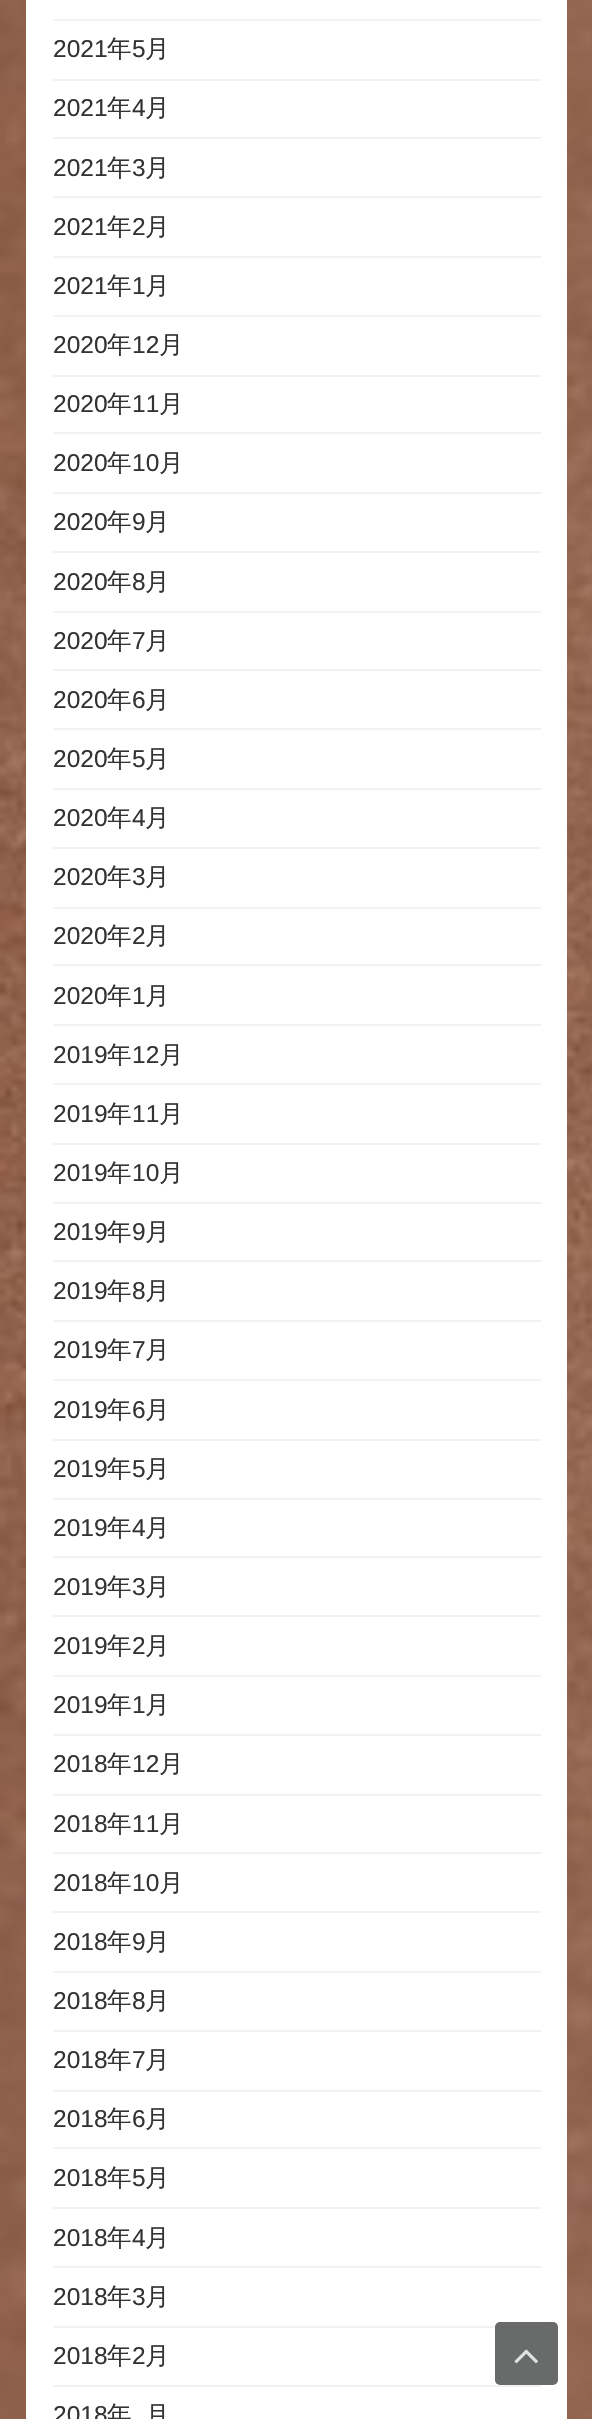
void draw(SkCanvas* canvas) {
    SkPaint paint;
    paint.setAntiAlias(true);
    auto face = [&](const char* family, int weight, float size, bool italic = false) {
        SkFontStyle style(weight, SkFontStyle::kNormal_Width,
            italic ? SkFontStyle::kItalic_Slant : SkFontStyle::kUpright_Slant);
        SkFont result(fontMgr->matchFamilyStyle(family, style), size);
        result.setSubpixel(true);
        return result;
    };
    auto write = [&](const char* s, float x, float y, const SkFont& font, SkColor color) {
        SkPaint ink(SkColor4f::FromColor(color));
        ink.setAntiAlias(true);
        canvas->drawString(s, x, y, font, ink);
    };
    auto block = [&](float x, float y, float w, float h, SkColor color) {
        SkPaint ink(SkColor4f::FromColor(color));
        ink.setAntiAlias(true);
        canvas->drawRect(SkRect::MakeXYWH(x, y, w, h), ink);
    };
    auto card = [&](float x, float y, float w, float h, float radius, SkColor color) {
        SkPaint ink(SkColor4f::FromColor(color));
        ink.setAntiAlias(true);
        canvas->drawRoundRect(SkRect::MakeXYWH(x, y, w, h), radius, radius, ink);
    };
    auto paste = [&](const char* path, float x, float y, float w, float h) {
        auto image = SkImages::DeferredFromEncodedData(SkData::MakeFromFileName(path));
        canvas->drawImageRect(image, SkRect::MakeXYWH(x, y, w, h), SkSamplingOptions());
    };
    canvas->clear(SK_ColorWHITE);
    paste("pic1.png", 0, 0, 592, 2419);
    block(26, 0, 541, 2419, SK_ColorWHITE);
    block(53, 19, 488, 2, SkColorSetRGB(242, 242, 242));
    block(53, 79, 488, 2, SkColorSetRGB(242, 242, 242));
    auto kFont1 = face("Liberation Sans", 400, 24.5f);
    write("2021", 53, 57, kFont1, SkColorSetRGB(51, 51, 51));
    auto kFont2 = face("WenQuanYi Zen Hei", 500, 24.5f);
    write("年", 107, 57, kFont2, SkColorSetRGB(51, 51, 51));
    write("5", 132, 57, kFont1, SkColorSetRGB(51, 51, 51));
    write("月", 145, 57, kFont2, SkColorSetRGB(51, 51, 51));
    block(53, 137, 488, 2, SkColorSetRGB(242, 242, 242));
    write("2021", 53, 116, kFont1, SkColorSetRGB(51, 51, 51));
    write("年", 107, 116, kFont2, SkColorSetRGB(51, 51, 51));
    write("4", 132, 116, kFont1, SkColorSetRGB(51, 51, 51));
    write("月", 145, 116, kFont2, SkColorSetRGB(51, 51, 51));
    block(53, 196, 488, 2, SkColorSetRGB(242, 242, 242));
    write("2021", 53, 176, kFont1, SkColorSetRGB(51, 51, 51));
    write("年", 107, 176, kFont2, SkColorSetRGB(51, 51, 51));
    write("3", 132, 176, kFont1, SkColorSetRGB(51, 51, 51));
    write("月", 145, 176, kFont2, SkColorSetRGB(51, 51, 51));
    block(53, 256, 488, 2, SkColorSetRGB(242, 242, 242));
    write("2021", 53, 235, kFont1, SkColorSetRGB(51, 51, 51));
    write("年", 107, 235, kFont2, SkColorSetRGB(51, 51, 51));
    write("2", 132, 235, kFont1, SkColorSetRGB(51, 51, 51));
    write("月", 145, 235, kFont2, SkColorSetRGB(51, 51, 51));
    block(53, 315, 488, 2, SkColorSetRGB(242, 242, 242));
    write("2021", 53, 294, kFont1, SkColorSetRGB(51, 51, 51));
    write("年", 107, 294, kFont2, SkColorSetRGB(51, 51, 51));
    write("1", 132, 294, kFont1, SkColorSetRGB(51, 51, 51));
    write("月", 145, 294, kFont2, SkColorSetRGB(51, 51, 51));
    block(53, 375, 488, 2, SkColorSetRGB(242, 242, 242));
    write("2020", 53, 353, kFont1, SkColorSetRGB(51, 51, 51));
    write("年", 107, 353, kFont2, SkColorSetRGB(51, 51, 51));
    write("12", 132, 353, kFont1, SkColorSetRGB(51, 51, 51));
    write("月", 159, 353, kFont2, SkColorSetRGB(51, 51, 51));
    block(53, 432, 488, 2, SkColorSetRGB(242, 242, 242));
    write("2020", 53, 412, kFont1, SkColorSetRGB(51, 51, 51));
    write("年", 107, 412, kFont2, SkColorSetRGB(51, 51, 51));
    write("11", 132, 412, kFont1, SkColorSetRGB(51, 51, 51));
    write("月", 159, 412, kFont2, SkColorSetRGB(51, 51, 51));
    block(53, 492, 488, 2, SkColorSetRGB(242, 242, 242));
    write("2020", 53, 471, kFont1, SkColorSetRGB(51, 51, 51));
    write("年", 107, 471, kFont2, SkColorSetRGB(51, 51, 51));
    write("10", 132, 471, kFont1, SkColorSetRGB(51, 51, 51));
    write("月", 159, 471, kFont2, SkColorSetRGB(51, 51, 51));
    block(53, 551, 488, 2, SkColorSetRGB(242, 242, 242));
    write("2020", 53, 530, kFont1, SkColorSetRGB(51, 51, 51));
    write("年", 107, 530, kFont2, SkColorSetRGB(51, 51, 51));
    write("9", 132, 530, kFont1, SkColorSetRGB(51, 51, 51));
    write("月", 145, 530, kFont2, SkColorSetRGB(51, 51, 51));
    block(53, 611, 488, 2, SkColorSetRGB(242, 242, 242));
    write("2020", 53, 590, kFont1, SkColorSetRGB(51, 51, 51));
    write("年", 107, 590, kFont2, SkColorSetRGB(51, 51, 51));
    write("8", 132, 590, kFont1, SkColorSetRGB(51, 51, 51));
    write("月", 145, 590, kFont2, SkColorSetRGB(51, 51, 51));
    block(53, 669, 488, 2, SkColorSetRGB(242, 242, 242));
    write("2020", 53, 649, kFont1, SkColorSetRGB(51, 51, 51));
    write("年", 107, 649, kFont2, SkColorSetRGB(51, 51, 51));
    write("7", 132, 649, kFont1, SkColorSetRGB(51, 51, 51));
    write("月", 145, 649, kFont2, SkColorSetRGB(51, 51, 51));
    block(53, 728, 488, 2, SkColorSetRGB(242, 242, 242));
    write("2020", 53, 708, kFont1, SkColorSetRGB(51, 51, 51));
    write("年", 107, 708, kFont2, SkColorSetRGB(51, 51, 51));
    write("6", 132, 708, kFont1, SkColorSetRGB(51, 51, 51));
    write("月", 145, 708, kFont2, SkColorSetRGB(51, 51, 51));
    block(53, 788, 488, 2, SkColorSetRGB(242, 242, 242));
    write("2020", 53, 767, kFont1, SkColorSetRGB(51, 51, 51));
    write("年", 107, 767, kFont2, SkColorSetRGB(51, 51, 51));
    write("5", 132, 767, kFont1, SkColorSetRGB(51, 51, 51));
    write("月", 145, 767, kFont2, SkColorSetRGB(51, 51, 51));
    block(53, 847, 488, 2, SkColorSetRGB(242, 242, 242));
    write("2020", 53, 826, kFont1, SkColorSetRGB(51, 51, 51));
    write("年", 107, 826, kFont2, SkColorSetRGB(51, 51, 51));
    write("4", 132, 826, kFont1, SkColorSetRGB(51, 51, 51));
    write("月", 145, 826, kFont2, SkColorSetRGB(51, 51, 51));
    block(53, 907, 488, 2, SkColorSetRGB(242, 242, 242));
    write("2020", 53, 885, kFont1, SkColorSetRGB(51, 51, 51));
    write("年", 107, 885, kFont2, SkColorSetRGB(51, 51, 51));
    write("3", 132, 885, kFont1, SkColorSetRGB(51, 51, 51));
    write("月", 145, 885, kFont2, SkColorSetRGB(51, 51, 51));
    block(53, 964, 488, 2, SkColorSetRGB(242, 242, 242));
    write("2020", 53, 944, kFont1, SkColorSetRGB(51, 51, 51));
    write("年", 107, 944, kFont2, SkColorSetRGB(51, 51, 51));
    write("2", 132, 944, kFont1, SkColorSetRGB(51, 51, 51));
    write("月", 145, 944, kFont2, SkColorSetRGB(51, 51, 51));
    block(53, 1024, 488, 2, SkColorSetRGB(242, 242, 242));
    write("2020", 53, 1004, kFont1, SkColorSetRGB(51, 51, 51));
    write("年", 107, 1004, kFont2, SkColorSetRGB(51, 51, 51));
    write("1", 132, 1004, kFont1, SkColorSetRGB(51, 51, 51));
    write("月", 145, 1004, kFont2, SkColorSetRGB(51, 51, 51));
    block(53, 1083, 488, 2, SkColorSetRGB(242, 242, 242));
    write("2019", 53, 1063, kFont1, SkColorSetRGB(51, 51, 51));
    write("年", 107, 1063, kFont2, SkColorSetRGB(51, 51, 51));
    write("12", 132, 1063, kFont1, SkColorSetRGB(51, 51, 51));
    write("月", 159, 1063, kFont2, SkColorSetRGB(51, 51, 51));
    block(53, 1143, 488, 2, SkColorSetRGB(242, 242, 242));
    write("2019", 53, 1122, kFont1, SkColorSetRGB(51, 51, 51));
    write("年", 107, 1122, kFont2, SkColorSetRGB(51, 51, 51));
    write("11", 132, 1122, kFont1, SkColorSetRGB(51, 51, 51));
    write("月", 159, 1122, kFont2, SkColorSetRGB(51, 51, 51));
    block(53, 1202, 488, 2, SkColorSetRGB(242, 242, 242));
    write("2019", 53, 1181, kFont1, SkColorSetRGB(51, 51, 51));
    write("年", 107, 1181, kFont2, SkColorSetRGB(51, 51, 51));
    write("10", 132, 1181, kFont1, SkColorSetRGB(51, 51, 51));
    write("月", 159, 1181, kFont2, SkColorSetRGB(51, 51, 51));
    block(53, 1260, 488, 2, SkColorSetRGB(242, 242, 242));
    write("2019", 53, 1240, kFont1, SkColorSetRGB(51, 51, 51));
    write("年", 107, 1240, kFont2, SkColorSetRGB(51, 51, 51));
    write("9", 132, 1240, kFont1, SkColorSetRGB(51, 51, 51));
    write("月", 145, 1240, kFont2, SkColorSetRGB(51, 51, 51));
    block(53, 1320, 488, 2, SkColorSetRGB(242, 242, 242));
    write("2019", 53, 1299, kFont1, SkColorSetRGB(51, 51, 51));
    write("年", 107, 1299, kFont2, SkColorSetRGB(51, 51, 51));
    write("8", 132, 1299, kFont1, SkColorSetRGB(51, 51, 51));
    write("月", 145, 1299, kFont2, SkColorSetRGB(51, 51, 51));
    block(53, 1379, 488, 2, SkColorSetRGB(242, 242, 242));
    write("2019", 53, 1358, kFont1, SkColorSetRGB(51, 51, 51));
    write("年", 107, 1358, kFont2, SkColorSetRGB(51, 51, 51));
    write("7", 132, 1358, kFont1, SkColorSetRGB(51, 51, 51));
    write("月", 145, 1358, kFont2, SkColorSetRGB(51, 51, 51));
    block(53, 1439, 488, 2, SkColorSetRGB(242, 242, 242));
    write("2019", 53, 1418, kFont1, SkColorSetRGB(51, 51, 51));
    write("年", 107, 1418, kFont2, SkColorSetRGB(51, 51, 51));
    write("6", 132, 1418, kFont1, SkColorSetRGB(51, 51, 51));
    write("月", 145, 1418, kFont2, SkColorSetRGB(51, 51, 51));
    block(53, 1498, 488, 2, SkColorSetRGB(242, 242, 242));
    write("2019", 53, 1477, kFont1, SkColorSetRGB(51, 51, 51));
    write("年", 107, 1477, kFont2, SkColorSetRGB(51, 51, 51));
    write("5", 132, 1477, kFont1, SkColorSetRGB(51, 51, 51));
    write("月", 145, 1477, kFont2, SkColorSetRGB(51, 51, 51));
    block(53, 1556, 488, 2, SkColorSetRGB(242, 242, 242));
    write("2019", 53, 1536, kFont1, SkColorSetRGB(51, 51, 51));
    write("年", 107, 1536, kFont2, SkColorSetRGB(51, 51, 51));
    write("4", 132, 1536, kFont1, SkColorSetRGB(51, 51, 51));
    write("月", 145, 1536, kFont2, SkColorSetRGB(51, 51, 51));
    block(53, 1615, 488, 2, SkColorSetRGB(242, 242, 242));
    write("2019", 53, 1595, kFont1, SkColorSetRGB(51, 51, 51));
    write("年", 107, 1595, kFont2, SkColorSetRGB(51, 51, 51));
    write("3", 132, 1595, kFont1, SkColorSetRGB(51, 51, 51));
    write("月", 145, 1595, kFont2, SkColorSetRGB(51, 51, 51));
    block(53, 1675, 488, 2, SkColorSetRGB(242, 242, 242));
    write("2019", 53, 1654, kFont1, SkColorSetRGB(51, 51, 51));
    write("年", 107, 1654, kFont2, SkColorSetRGB(51, 51, 51));
    write("2", 132, 1654, kFont1, SkColorSetRGB(51, 51, 51));
    write("月", 145, 1654, kFont2, SkColorSetRGB(51, 51, 51));
    block(53, 1734, 488, 2, SkColorSetRGB(242, 242, 242));
    write("2019", 53, 1713, kFont1, SkColorSetRGB(51, 51, 51));
    write("年", 107, 1713, kFont2, SkColorSetRGB(51, 51, 51));
    write("1", 132, 1713, kFont1, SkColorSetRGB(51, 51, 51));
    write("月", 145, 1713, kFont2, SkColorSetRGB(51, 51, 51));
    block(53, 1794, 488, 2, SkColorSetRGB(242, 242, 242));
    write("2018", 53, 1772, kFont1, SkColorSetRGB(51, 51, 51));
    write("年", 107, 1772, kFont2, SkColorSetRGB(51, 51, 51));
    write("12", 132, 1772, kFont1, SkColorSetRGB(51, 51, 51));
    write("月", 159, 1772, kFont2, SkColorSetRGB(51, 51, 51));
    block(53, 1852, 488, 2, SkColorSetRGB(242, 242, 242));
    write("2018", 53, 1832, kFont1, SkColorSetRGB(51, 51, 51));
    write("年", 107, 1832, kFont2, SkColorSetRGB(51, 51, 51));
    write("11", 132, 1832, kFont1, SkColorSetRGB(51, 51, 51));
    write("月", 159, 1832, kFont2, SkColorSetRGB(51, 51, 51));
    block(53, 1911, 488, 2, SkColorSetRGB(242, 242, 242));
    write("2018", 53, 1891, kFont1, SkColorSetRGB(51, 51, 51));
    write("年", 107, 1891, kFont2, SkColorSetRGB(51, 51, 51));
    write("10", 132, 1891, kFont1, SkColorSetRGB(51, 51, 51));
    write("月", 159, 1891, kFont2, SkColorSetRGB(51, 51, 51));
    block(53, 1971, 488, 2, SkColorSetRGB(242, 242, 242));
    write("2018", 53, 1950, kFont1, SkColorSetRGB(51, 51, 51));
    write("年", 107, 1950, kFont2, SkColorSetRGB(51, 51, 51));
    write("9", 132, 1950, kFont1, SkColorSetRGB(51, 51, 51));
    write("月", 145, 1950, kFont2, SkColorSetRGB(51, 51, 51));
    block(53, 2030, 488, 2, SkColorSetRGB(242, 242, 242));
    write("2018", 53, 2009, kFont1, SkColorSetRGB(51, 51, 51));
    write("年", 107, 2009, kFont2, SkColorSetRGB(51, 51, 51));
    write("8", 132, 2009, kFont1, SkColorSetRGB(51, 51, 51));
    write("月", 145, 2009, kFont2, SkColorSetRGB(51, 51, 51));
    block(53, 2090, 488, 2, SkColorSetRGB(242, 242, 242));
    write("2018", 53, 2068, kFont1, SkColorSetRGB(51, 51, 51));
    write("年", 107, 2068, kFont2, SkColorSetRGB(51, 51, 51));
    write("7", 132, 2068, kFont1, SkColorSetRGB(51, 51, 51));
    write("月", 145, 2068, kFont2, SkColorSetRGB(51, 51, 51));
    block(53, 2147, 488, 2, SkColorSetRGB(242, 242, 242));
    write("2018", 53, 2127, kFont1, SkColorSetRGB(51, 51, 51));
    write("年", 107, 2127, kFont2, SkColorSetRGB(51, 51, 51));
    write("6", 132, 2127, kFont1, SkColorSetRGB(51, 51, 51));
    write("月", 145, 2127, kFont2, SkColorSetRGB(51, 51, 51));
    block(53, 2207, 488, 2, SkColorSetRGB(242, 242, 242));
    write("2018", 53, 2186, kFont1, SkColorSetRGB(51, 51, 51));
    write("年", 107, 2186, kFont2, SkColorSetRGB(51, 51, 51));
    write("5", 132, 2186, kFont1, SkColorSetRGB(51, 51, 51));
    write("月", 145, 2186, kFont2, SkColorSetRGB(51, 51, 51));
    block(53, 2266, 488, 2, SkColorSetRGB(242, 242, 242));
    write("2018", 53, 2246, kFont1, SkColorSetRGB(51, 51, 51));
    write("年", 107, 2246, kFont2, SkColorSetRGB(51, 51, 51));
    write("4", 132, 2246, kFont1, SkColorSetRGB(51, 51, 51));
    write("月", 145, 2246, kFont2, SkColorSetRGB(51, 51, 51));
    block(53, 2326, 488, 2, SkColorSetRGB(242, 242, 242));
    write("2018", 53, 2305, kFont1, SkColorSetRGB(51, 51, 51));
    write("年", 107, 2305, kFont2, SkColorSetRGB(51, 51, 51));
    write("3", 132, 2305, kFont1, SkColorSetRGB(51, 51, 51));
    write("月", 145, 2305, kFont2, SkColorSetRGB(51, 51, 51));
    block(53, 2385, 488, 2, SkColorSetRGB(242, 242, 242));
    write("2018", 53, 2364, kFont1, SkColorSetRGB(51, 51, 51));
    write("年", 107, 2364, kFont2, SkColorSetRGB(51, 51, 51));
    write("2", 132, 2364, kFont1, SkColorSetRGB(51, 51, 51));
    write("月", 145, 2364, kFont2, SkColorSetRGB(51, 51, 51));
    write("2018", 53, 2423, kFont1, SkColorSetRGB(51, 51, 51));
    write("年", 107, 2423, kFont2, SkColorSetRGB(51, 51, 51));
    write("月", 145, 2423, kFont2, SkColorSetRGB(51, 51, 51));
    card(495, 2322, 63, 63, 5, SkColorSetARGB(204, 68, 69, 69));
    paste("pic2.png", 514, 2349, 24, 15);
}
